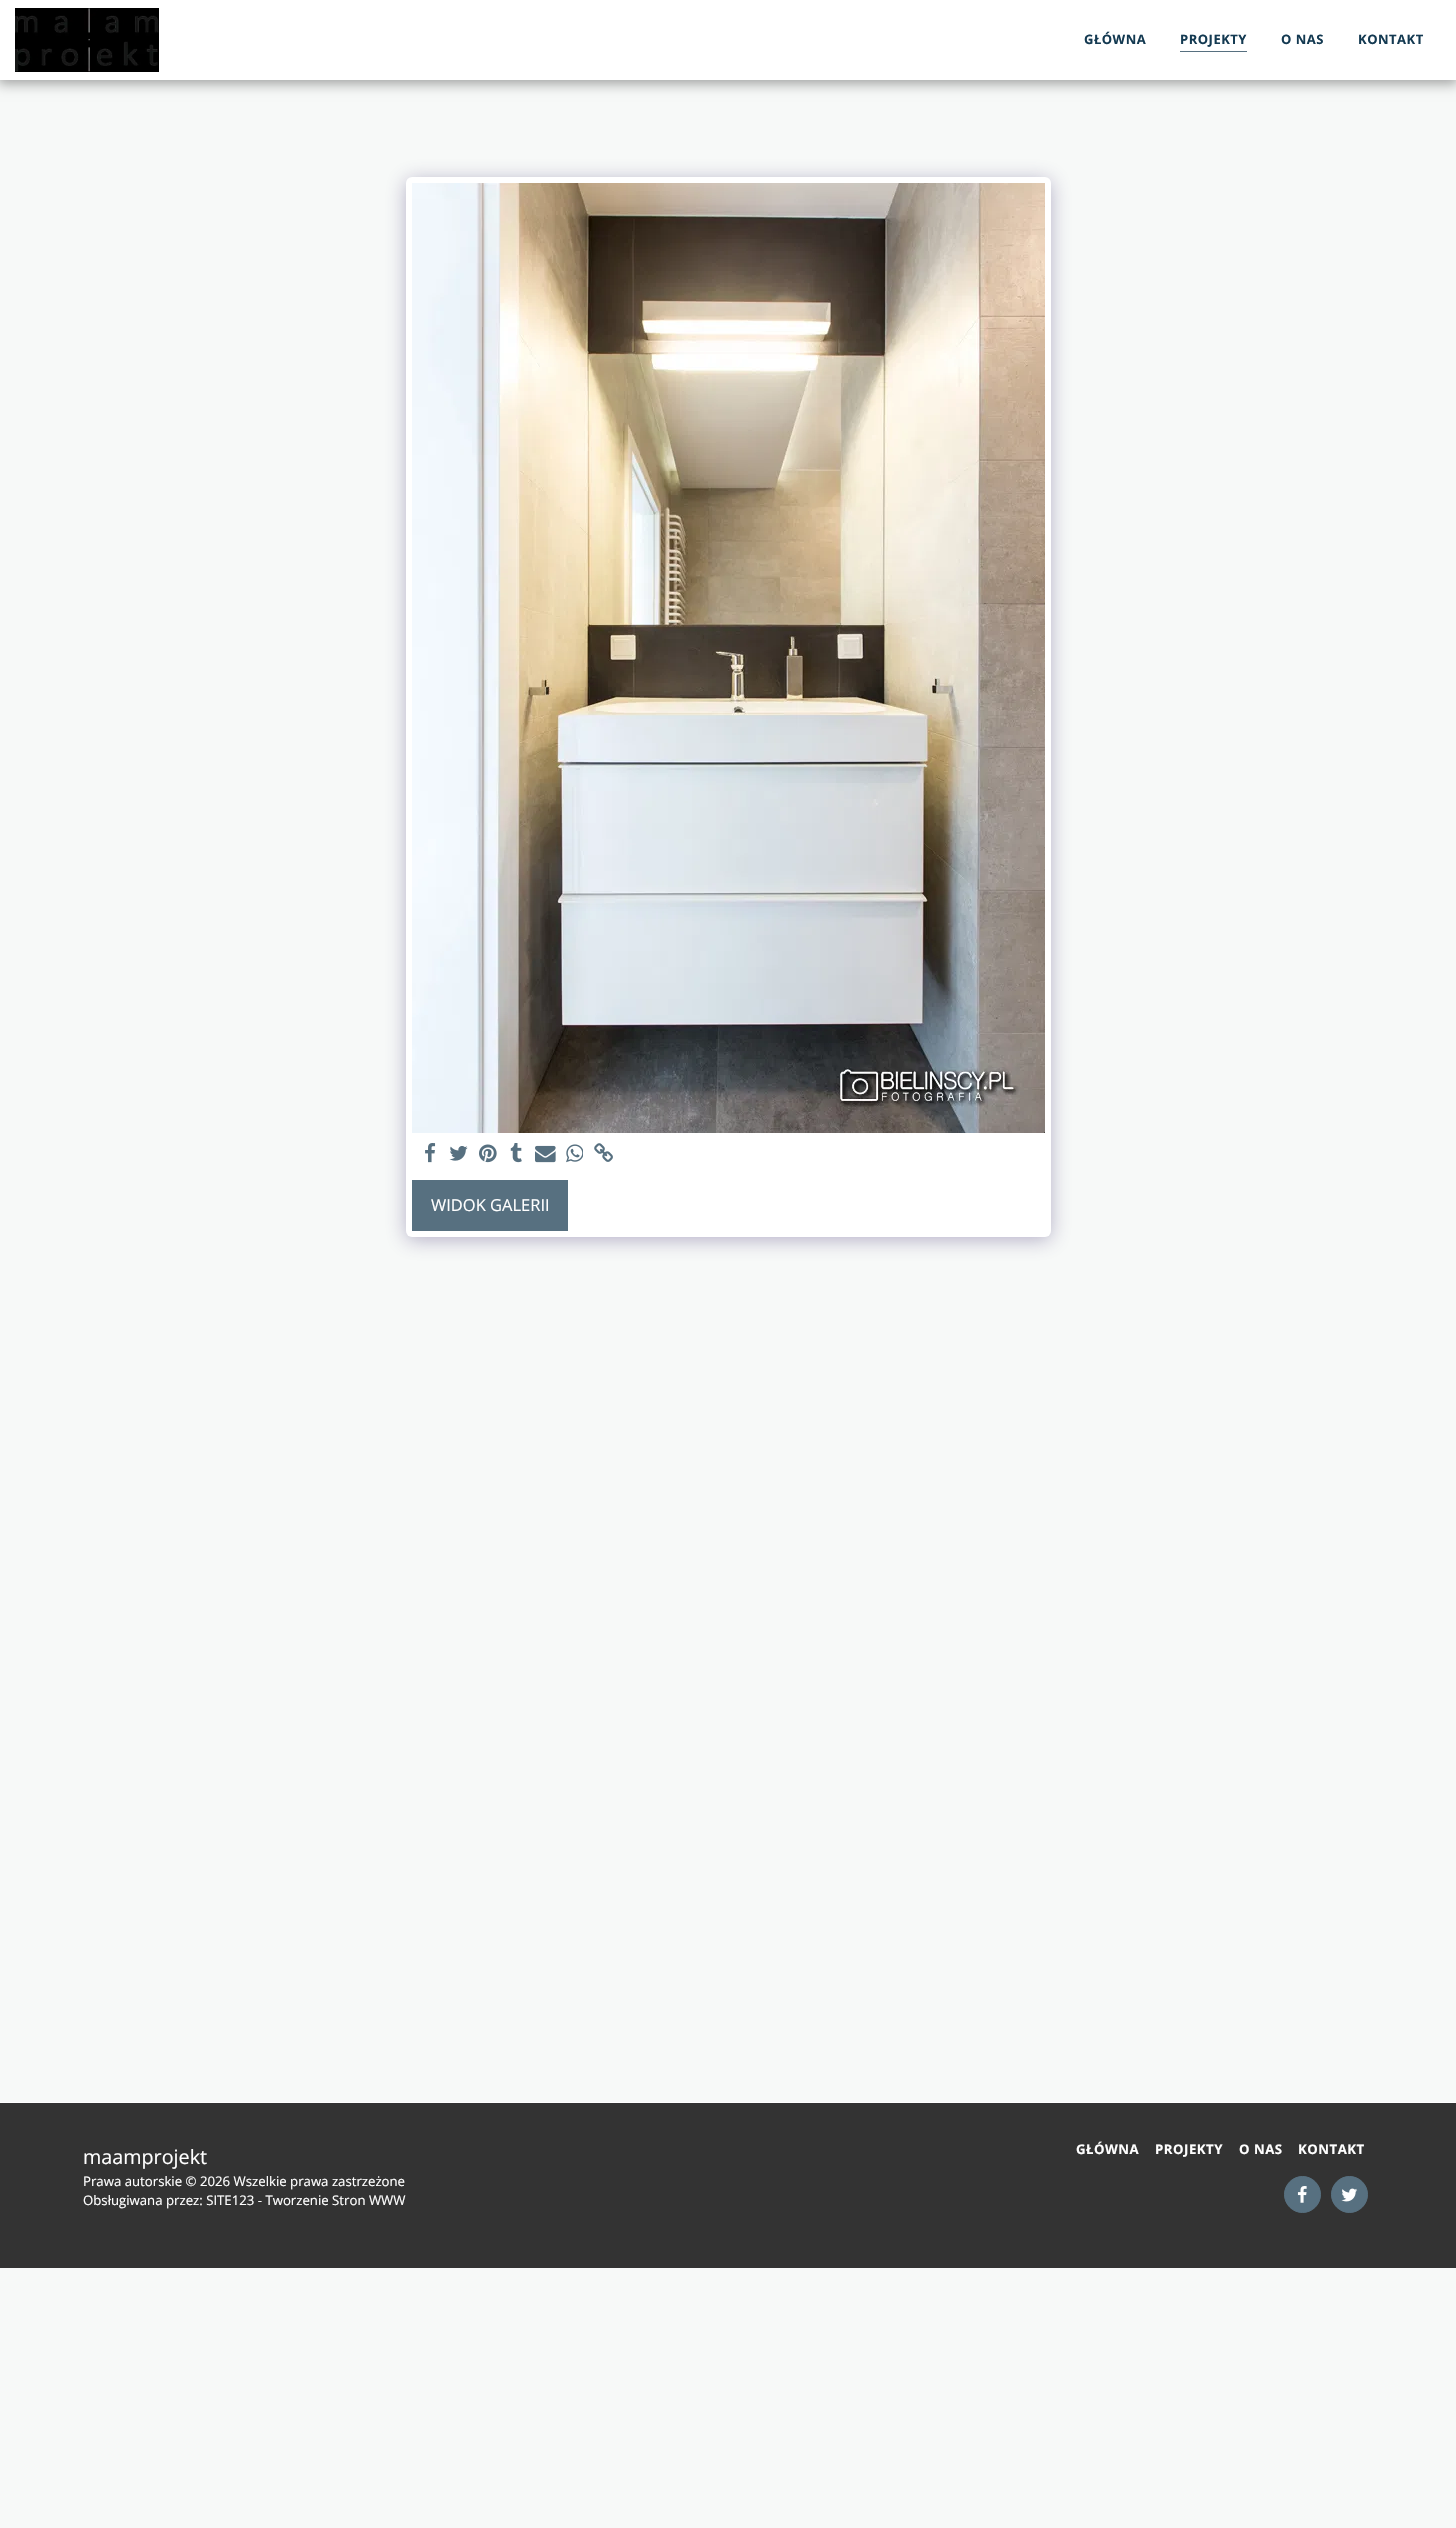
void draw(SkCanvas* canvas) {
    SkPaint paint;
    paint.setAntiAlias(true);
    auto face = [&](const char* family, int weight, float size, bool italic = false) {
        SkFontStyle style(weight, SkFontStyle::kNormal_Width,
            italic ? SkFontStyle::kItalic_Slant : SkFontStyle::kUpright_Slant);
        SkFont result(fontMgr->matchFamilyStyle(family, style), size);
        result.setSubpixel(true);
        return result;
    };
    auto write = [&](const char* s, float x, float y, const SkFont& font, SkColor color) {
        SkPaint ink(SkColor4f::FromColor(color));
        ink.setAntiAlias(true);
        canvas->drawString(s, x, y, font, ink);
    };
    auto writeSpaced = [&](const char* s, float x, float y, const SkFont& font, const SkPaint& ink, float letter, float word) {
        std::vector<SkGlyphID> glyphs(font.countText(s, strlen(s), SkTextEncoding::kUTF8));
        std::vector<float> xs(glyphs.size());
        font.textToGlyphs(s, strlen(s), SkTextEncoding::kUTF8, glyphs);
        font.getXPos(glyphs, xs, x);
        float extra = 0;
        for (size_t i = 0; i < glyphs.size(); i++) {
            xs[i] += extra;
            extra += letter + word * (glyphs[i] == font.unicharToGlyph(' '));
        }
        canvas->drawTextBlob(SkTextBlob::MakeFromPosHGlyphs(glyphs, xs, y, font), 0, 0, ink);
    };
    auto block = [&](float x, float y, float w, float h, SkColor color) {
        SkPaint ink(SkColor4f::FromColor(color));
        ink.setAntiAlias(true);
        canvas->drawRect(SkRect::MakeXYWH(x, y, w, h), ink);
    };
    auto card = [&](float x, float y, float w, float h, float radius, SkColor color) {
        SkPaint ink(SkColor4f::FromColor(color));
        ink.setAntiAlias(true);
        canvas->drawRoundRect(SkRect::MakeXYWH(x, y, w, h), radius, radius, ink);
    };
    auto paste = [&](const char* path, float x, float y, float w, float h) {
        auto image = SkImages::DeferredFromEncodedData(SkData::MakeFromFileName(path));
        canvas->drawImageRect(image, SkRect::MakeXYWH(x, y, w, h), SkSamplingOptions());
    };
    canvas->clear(SkColorSetRGB(247, 249, 248));
    paint.setColor(SkColorSetARGB(89, 0, 0, 0));
    paint.setMaskFilter(SkMaskFilter::MakeBlur(kNormal_SkBlurStyle, 6));
    canvas->drawRect(SkRect::MakeXYWH(-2, 0, 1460, 84), paint);
    paint.setMaskFilter(nullptr);
    block(0, 0, 1456, 80, SK_ColorWHITE);
    paste("pic1.png", 15, 8, 144, 64);
    auto kFont1 = face("Open Sans", 700, 13);
    paint.setColor(SkColorSetRGB(20, 58, 82));
    writeSpaced("GŁÓWNA", 1084, 44, kFont1, paint, 0.5f, 0);
    writeSpaced("PROJEKTY", 1180, 44, kFont1, paint, 0.5f, 0);
    block(1180, 51, 67, 1, SkColorSetRGB(87, 112, 128));
    writeSpaced("O NAS", 1281, 44, kFont1, paint, 0.5f, 0);
    writeSpaced("KONTAKT", 1358, 44, kFont1, paint, 0.5f, 0);
    paint.setColor(SkColorSetARGB(102, 77, 63, 122));
    paint.setMaskFilter(SkMaskFilter::MakeBlur(kNormal_SkBlurStyle, 10));
    canvas->drawRoundRect(SkRect::MakeXYWH(406, 180, 645, 1060), 6, 6, paint);
    paint.setMaskFilter(nullptr);
    card(406, 177, 645, 1060, 6, SK_ColorWHITE);
    paste("pic2.png", 412, 183, 633, 950);
    paste("pic3.png", 425, 1143, 11, 20);
    paste("pic4.png", 449, 1146, 19, 15);
    paste("pic5.png", 479, 1144, 18, 19);
    paste("pic6.png", 510, 1143, 12, 20);
    paste("pic7.png", 535, 1145, 21, 18);
    paste("pic8.png", 566, 1144, 17, 19);
    paste("pic9.png", 594, 1143, 19, 19);
    block(412, 1180, 156, 51, SkColorSetRGB(87, 112, 128));
    auto kFont2 = face("Open Sans", 400, 16.5f);
    write("WIDOK GALERII", 431, 1211, kFont2, SK_ColorWHITE);
    block(0, 2103, 1456, 165, SkColorSetRGB(51, 51, 51));
    block(0, 2102, 1456, 1, SK_ColorWHITE);
    auto kFont3 = face("Open Sans", 400, 19.75f);
    write("maamprojekt", 83, 2164, kFont3, SK_ColorWHITE);
    auto kFont4 = face("Open Sans", 400, 13.2f);
    write("Prawa autorskie © 2026 Wszelkie prawa zastrzeżone", 83, 2186, kFont4, SK_ColorWHITE);
    write("Obsługiwana przez: SITE123 - Tworzenie Stron WWW", 83, 2205, kFont4, SK_ColorWHITE);
    auto kFont5 = face("Open Sans", 700, 13.2f);
    paint.setColor(SK_ColorWHITE);
    writeSpaced("GŁÓWNA", 1076, 2154, kFont5, paint, 0.5f, 0);
    writeSpaced("PROJEKTY", 1155, 2154, kFont5, paint, 0.5f, 0);
    writeSpaced("O NAS", 1239, 2154, kFont5, paint, 0.5f, 0);
    writeSpaced("KONTAKT", 1298, 2154, kFont5, paint, 0.5f, 0);
    paint.setColor(SkColorSetRGB(87, 112, 128));
    canvas->drawCircle(1302.5f, 2194.5f, 18, paint);
    paint.setStyle(SkPaint::kStroke_Style);
    paint.setStrokeWidth(1);
    canvas->drawCircle(1302.5f, 2194.5f, 18, paint);
    paste("pic10.png", 1297, 2186, 10, 17);
    paint.setStyle(SkPaint::kFill_Style);
    canvas->drawCircle(1349.5f, 2194.5f, 18, paint);
    paint.setStyle(SkPaint::kStroke_Style);
    canvas->drawCircle(1349.5f, 2194.5f, 18, paint);
    paste("pic11.png", 1341, 2188, 17, 14);
}
